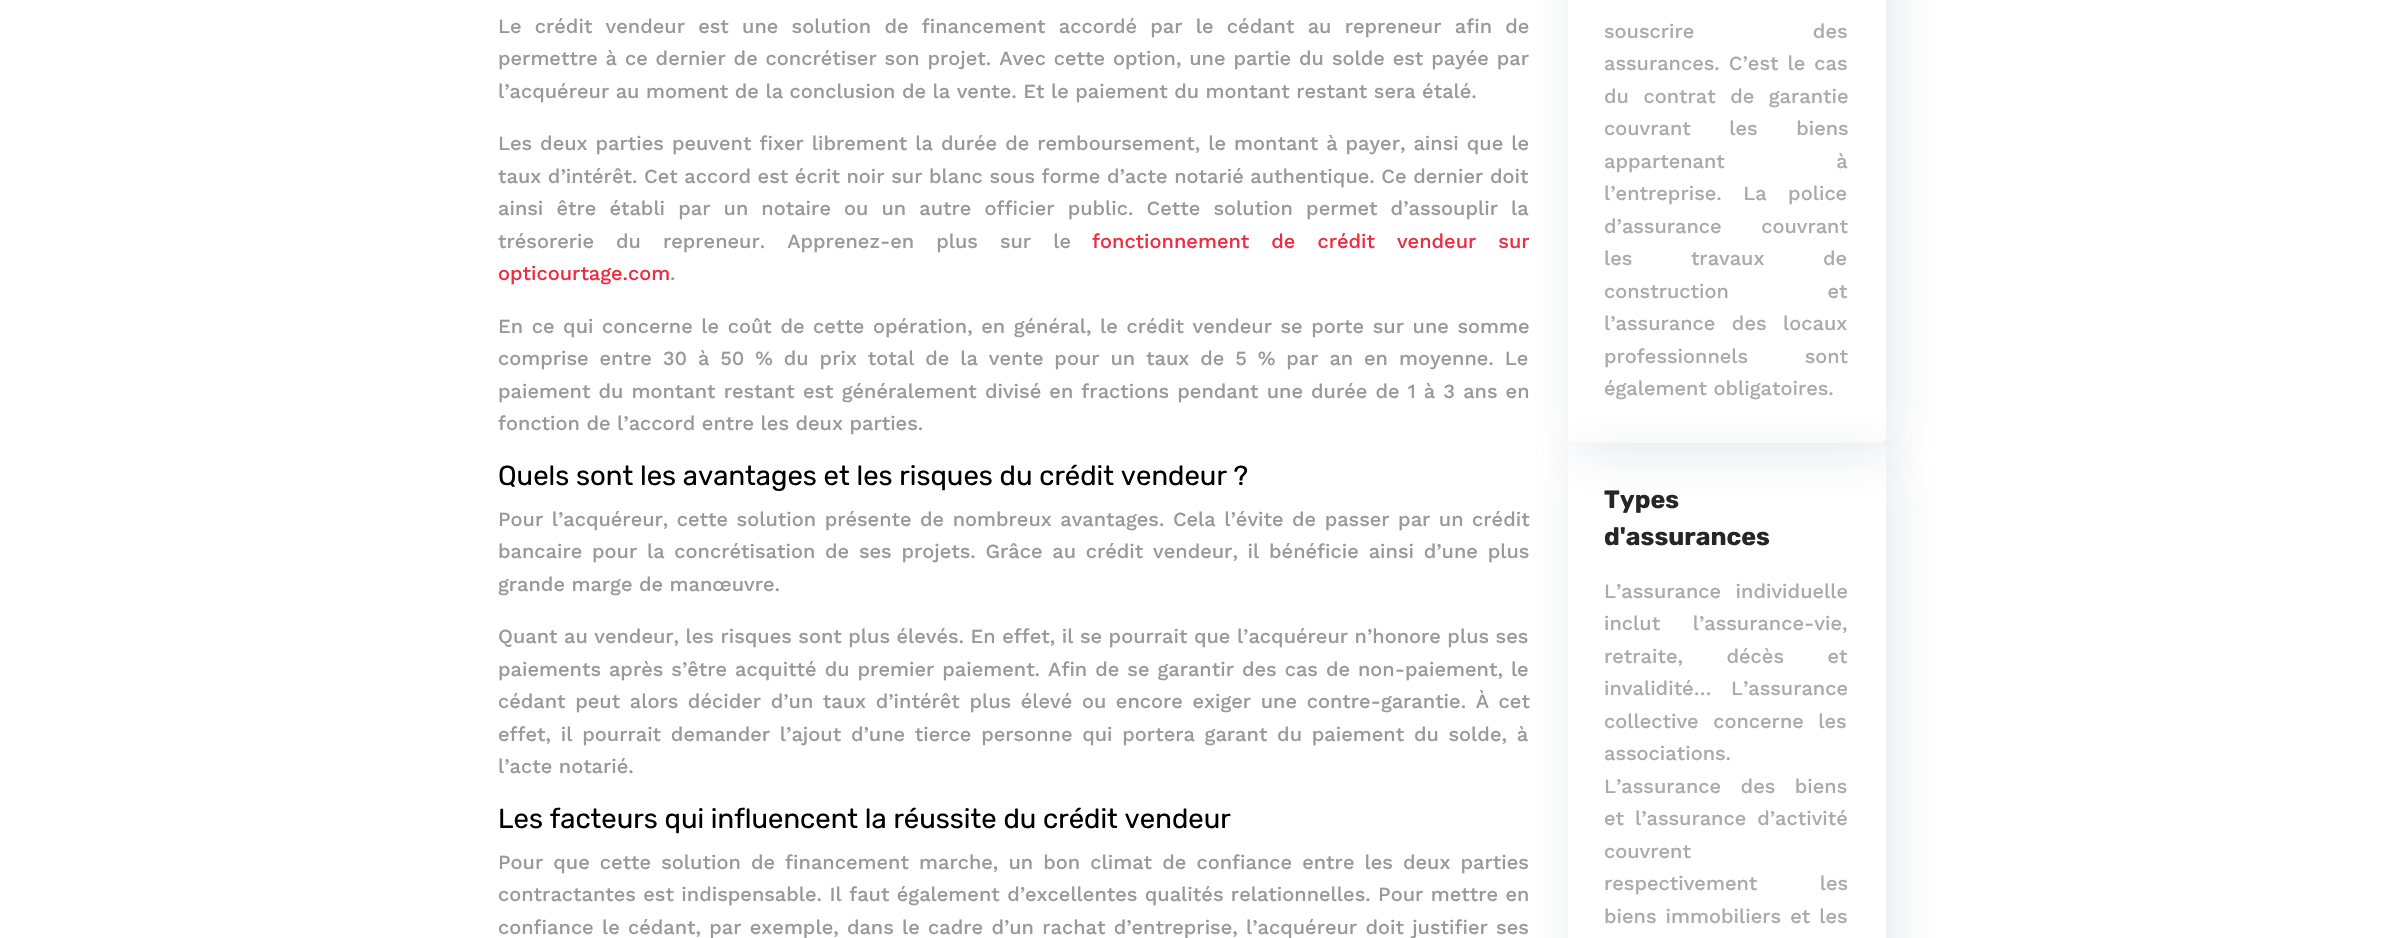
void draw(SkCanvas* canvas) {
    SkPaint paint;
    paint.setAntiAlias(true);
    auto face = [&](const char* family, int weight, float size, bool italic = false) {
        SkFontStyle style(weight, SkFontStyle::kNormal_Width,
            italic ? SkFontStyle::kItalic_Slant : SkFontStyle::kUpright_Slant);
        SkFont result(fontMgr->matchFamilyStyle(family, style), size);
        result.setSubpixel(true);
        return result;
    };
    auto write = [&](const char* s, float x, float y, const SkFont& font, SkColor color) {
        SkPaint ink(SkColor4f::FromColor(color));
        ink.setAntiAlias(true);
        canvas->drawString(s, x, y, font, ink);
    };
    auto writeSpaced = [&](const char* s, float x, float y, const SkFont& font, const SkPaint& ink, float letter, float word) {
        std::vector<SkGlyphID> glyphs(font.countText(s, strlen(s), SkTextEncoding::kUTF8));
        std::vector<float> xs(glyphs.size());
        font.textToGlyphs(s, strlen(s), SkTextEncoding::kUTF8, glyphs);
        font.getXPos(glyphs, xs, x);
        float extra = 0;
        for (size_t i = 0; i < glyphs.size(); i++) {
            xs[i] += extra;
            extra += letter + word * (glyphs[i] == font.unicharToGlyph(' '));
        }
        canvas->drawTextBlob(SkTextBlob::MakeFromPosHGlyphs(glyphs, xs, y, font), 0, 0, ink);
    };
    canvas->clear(SK_ColorWHITE);
    auto kFont1 = face("Work Sans", 500, 20);
    paint.setColor(SkColorSetRGB(153, 153, 153));
    writeSpaced("Le crédit vendeur est une solution de financement accordé par le cédant au repreneur afin de", 498, 33, kFont1, paint, 0, 6.75f);
    writeSpaced("permettre à ce dernier de concrétiser son projet. Avec cette option, une partie du solde est payée par", 498, 65, kFont1, paint, 0, 1.4f);
    write("l’acquéreur au moment de la conclusion de la vente. Et le paiement du montant restant sera étalé.", 498, 98, kFont1, SkColorSetRGB(153, 153, 153));
    writeSpaced("Les deux parties peuvent fixer librement la durée de remboursement, le montant à payer, ainsi que le", 498, 150, kFont1, paint, 0, 1.5f);
    writeSpaced("taux d’intérêt. Cet accord est écrit noir sur blanc sous forme d’acte notarié authentique. Ce dernier doit", 498, 183, kFont1, paint, 0, 0.1f);
    writeSpaced("ainsi être établi par un notaire ou un autre officier public. Cette solution permet d’assouplir la", 498, 215, kFont1, paint, 0, 6.6f);
    writeSpaced("trésorerie du repreneur. Apprenez-en plus sur le", 498, 248, kFont1, paint, 0, 15.5f);
    paint.setColor(SkColorSetRGB(237, 44, 65));
    writeSpaced("fonctionnement de crédit vendeur sur", 1092, 248, kFont1, paint, 0, 15.5f);
    write("opticourtage.com", 498, 280, kFont1, SkColorSetRGB(237, 44, 65));
    write(".", 670, 280, kFont1, SkColorSetRGB(153, 153, 153));
    paint.setColor(SkColorSetRGB(153, 153, 153));
    writeSpaced("En ce qui concerne le coût de cette opération, en général, le crédit vendeur se porte sur une somme", 498, 333, kFont1, paint, 0, 2.1f);
    writeSpaced("comprise entre 30 à 50 % du prix total de la vente pour un taux de 5 % par an en moyenne. Le", 498, 365, kFont1, paint, 0, 4.4f);
    writeSpaced("paiement du montant restant est généralement divisé en fractions pendant une durée de 1 à 3 ans en", 498, 398, kFont1, paint, 0, 1.6f);
    write("fonction de l’accord entre les deux parties.", 498, 430, kFont1, SkColorSetRGB(153, 153, 153));
    auto kFont2 = face("Rubik", 400, 27.5f);
    write("Quels sont les avantages et les risques du crédit vendeur ?", 498, 485, kFont2, SK_ColorBLACK);
    writeSpaced("Pour l’acquéreur, cette solution présente de nombreux avantages. Cela l’évite de passer par un crédit", 498, 526, kFont1, paint, 0, 2);
    writeSpaced("bancaire pour la concrétisation de ses projets. Grâce au crédit vendeur, il bénéficie ainsi d’une plus", 498, 558, kFont1, paint, 0, 3.25f);
    write("grande marge de manœuvre.", 498, 591, kFont1, SkColorSetRGB(153, 153, 153));
    write("Quant au vendeur, les risques sont plus élevés. En effet, il se pourrait que l’acquéreur n’honore plus ses", 498, 643, kFont1, SkColorSetRGB(153, 153, 153));
    writeSpaced("paiements après s’être acquitté du premier paiement. Afin de se garantir des cas de non-paiement, le", 498, 676, kFont1, paint, 0, 1.5f);
    writeSpaced("cédant peut alors décider d’un taux d’intérêt plus élevé ou encore exiger une contre-garantie. À cet", 498, 708, kFont1, paint, 0, 3.1f);
    writeSpaced("effet, il pourrait demander l’ajout d’une tierce personne qui portera garant du paiement du solde, à", 498, 741, kFont1, paint, 0, 3.25f);
    write("l’acte notarié.", 498, 773, kFont1, SkColorSetRGB(153, 153, 153));
    write("Les facteurs qui influencent la réussite du crédit vendeur", 498, 828, kFont2, SK_ColorBLACK);
    writeSpaced("Pour que cette solution de financement marche, un bon climat de confiance entre les deux parties", 498, 869, kFont1, paint, 0, 3.6f);
    writeSpaced("contractantes est indispensable. Il faut également d’excellentes qualités relationnelles. Pour mettre en", 498, 901, kFont1, paint, 0, 0.9f);
    writeSpaced("confiance le cédant, par exemple, dans le cadre d’un rachat d’entreprise, l’acquéreur doit justifier ses", 498, 934, kFont1, paint, 0, 1.75f);
    canvas->save();
    canvas->clipPath(SkPathBuilder(SkPathFillType::kEvenOdd).moveTo(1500, 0).lineTo(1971, 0).lineTo(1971, 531).lineTo(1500, 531).close().moveTo(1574, -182).lineTo(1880, -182).cubicTo(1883.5f, -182, 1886, -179.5f, 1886, -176).lineTo(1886, 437).cubicTo(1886, 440.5f, 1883.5f, 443, 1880, 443).lineTo(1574, 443).cubicTo(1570.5f, 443, 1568, 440.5f, 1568, 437).lineTo(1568, -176).cubicTo(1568, -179.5f, 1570.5f, -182, 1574, -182).close().detach(), true);
    paint.setColor(SkColorSetARGB(26, 13, 52, 79));
    paint.setMaskFilter(SkMaskFilter::MakeBlur(kNormal_SkBlurStyle, 25));
    canvas->drawRoundRect(SkRect::MakeXYWH(1576, -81, 319, 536), 6, 6, paint);
    paint.setMaskFilter(nullptr);
    canvas->restore();
    paint.setColor(SkColorSetRGB(170, 170, 170));
    writeSpaced("souscrire des", 1604, 38, kFont1, paint, 0, 112);
    writeSpaced("assurances. C’est le cas", 1604, 70, kFont1, paint, 0, 2.5f);
    writeSpaced("du contrat de garantie", 1604, 103, kFont1, paint, 0, 8);
    writeSpaced("couvrant les biens", 1604, 135, kFont1, paint, 0, 32);
    writeSpaced("appartenant à", 1604, 168, kFont1, paint, 0, 105);
    writeSpaced("l’entreprise. La police", 1604, 200, kFont1, paint, 0, 15);
    writeSpaced("d’assurance couvrant", 1604, 233, kFont1, paint, 0, 33);
    writeSpaced("les travaux de", 1604, 265, kFont1, paint, 0, 52);
    writeSpaced("construction et", 1604, 298, kFont1, paint, 0, 92);
    writeSpaced("l’assurance des locaux", 1604, 330, kFont1, paint, 0, 10);
    writeSpaced("professionnels sont", 1604, 363, kFont1, paint, 0, 50);
    canvas->save();
    canvas->clipPath(SkPathBuilder(SkPathFillType::kEvenOdd).moveTo(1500, 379).lineTo(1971, 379).lineTo(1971, 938).lineTo(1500, 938).close().moveTo(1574, 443).lineTo(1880, 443).cubicTo(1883.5f, 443, 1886, 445.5f, 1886, 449).lineTo(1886, 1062).cubicTo(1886, 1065.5f, 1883.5f, 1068, 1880, 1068).lineTo(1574, 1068).cubicTo(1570.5f, 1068, 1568, 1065.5f, 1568, 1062).lineTo(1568, 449).cubicTo(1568, 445.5f, 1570.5f, 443, 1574, 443).close().detach(), true);
    paint.setColor(SkColorSetARGB(26, 13, 52, 79));
    paint.setMaskFilter(SkMaskFilter::MakeBlur(kNormal_SkBlurStyle, 25));
    canvas->drawRoundRect(SkRect::MakeXYWH(1576, 455, 319, 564), 6, 6, paint);
    paint.setMaskFilter(nullptr);
    canvas->restore();
    write("également obligatoires.", 1604, 395, kFont1, SkColorSetRGB(170, 170, 170));
    auto kFont3 = face("Rubik", 700, 25);
    write("Types", 1604, 508, kFont3, SkColorSetRGB(38, 38, 38));
    write("d'assurances", 1604, 545, kFont3, SkColorSetRGB(38, 38, 38));
    paint.setColor(SkColorSetRGB(170, 170, 170));
    writeSpaced("L’assurance individuelle", 1604, 598, kFont1, paint, 0, 8);
    writeSpaced("inclut l’assurance-vie,", 1604, 630, kFont1, paint, 0, 26);
    writeSpaced("retraite, décès et", 1604, 663, kFont1, paint, 0, 37);
    writeSpaced("invalidité… L’assurance", 1604, 695, kFont1, paint, 0, 13);
    writeSpaced("collective concerne les", 1604, 728, kFont1, paint, 0, 8);
    write("associations.", 1604, 760, kFont1, SkColorSetRGB(170, 170, 170));
    writeSpaced("L’assurance des biens", 1604, 793, kFont1, paint, 0, 13);
    writeSpaced("et l’assurance d’activité", 1604, 825, kFont1, paint, 0, 4.4f);
    write("couvrent", 1604, 858, kFont1, SkColorSetRGB(170, 170, 170));
    writeSpaced("respectivement les", 1604, 890, kFont1, paint, 0, 56);
    writeSpaced("biens immobiliers et les", 1604, 923, kFont1, paint, 0, 2.5f);
}
